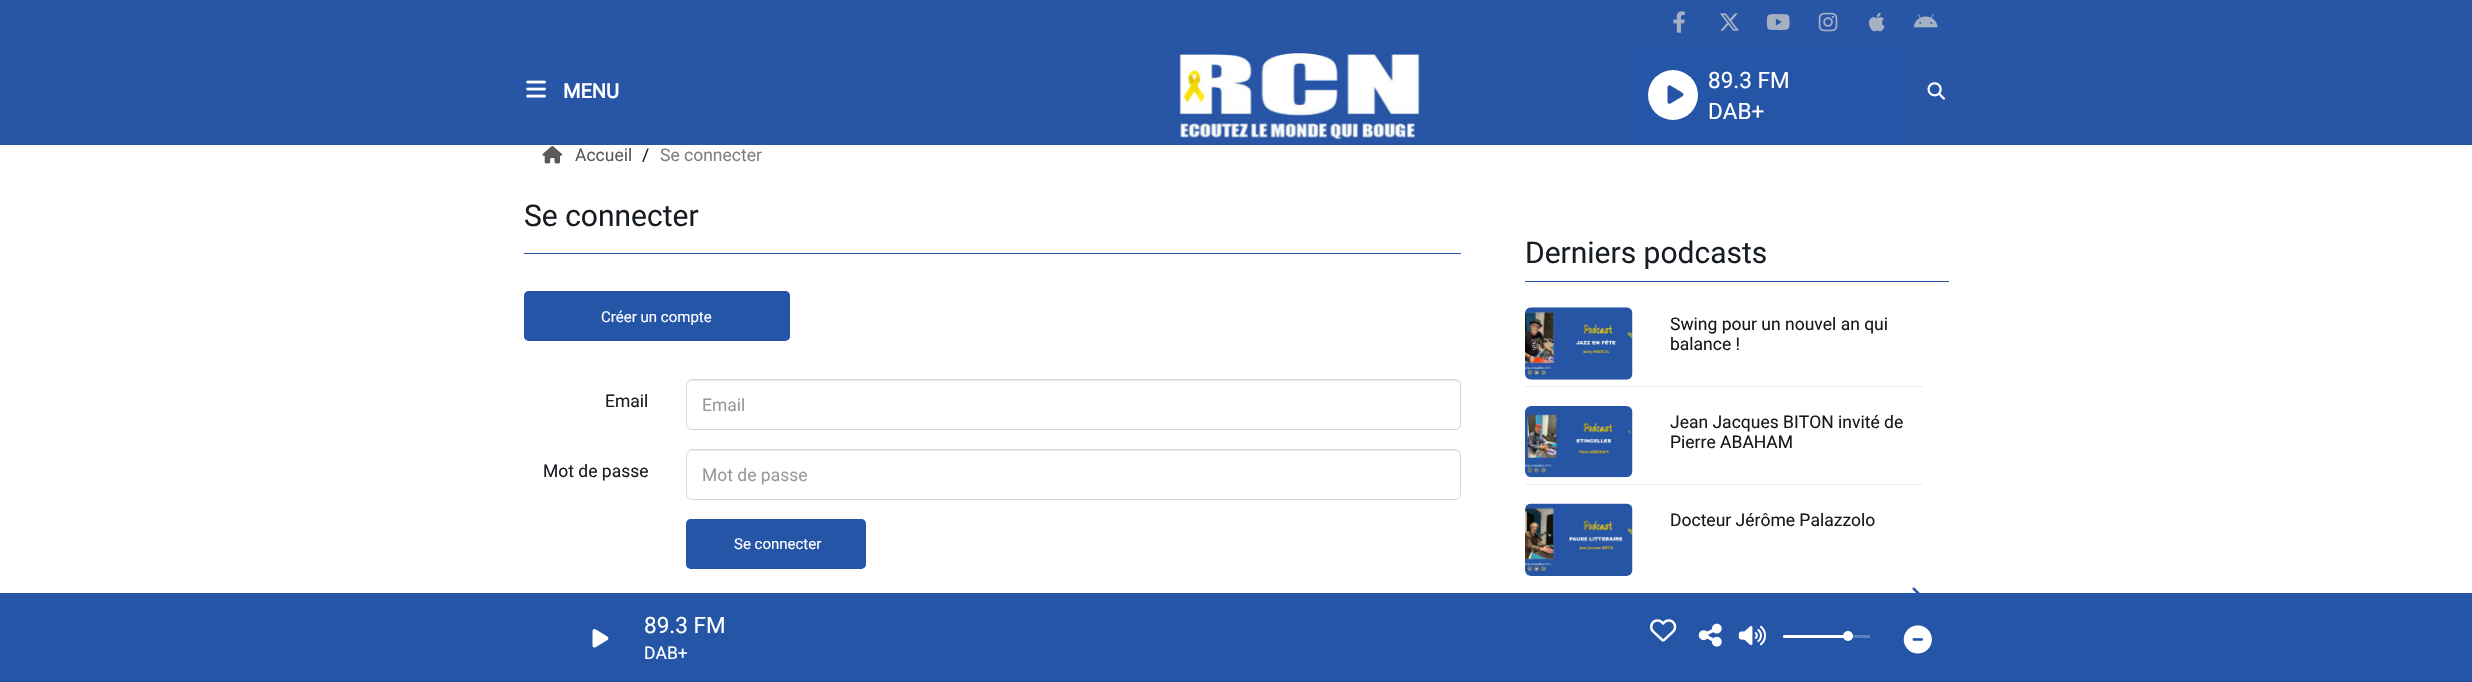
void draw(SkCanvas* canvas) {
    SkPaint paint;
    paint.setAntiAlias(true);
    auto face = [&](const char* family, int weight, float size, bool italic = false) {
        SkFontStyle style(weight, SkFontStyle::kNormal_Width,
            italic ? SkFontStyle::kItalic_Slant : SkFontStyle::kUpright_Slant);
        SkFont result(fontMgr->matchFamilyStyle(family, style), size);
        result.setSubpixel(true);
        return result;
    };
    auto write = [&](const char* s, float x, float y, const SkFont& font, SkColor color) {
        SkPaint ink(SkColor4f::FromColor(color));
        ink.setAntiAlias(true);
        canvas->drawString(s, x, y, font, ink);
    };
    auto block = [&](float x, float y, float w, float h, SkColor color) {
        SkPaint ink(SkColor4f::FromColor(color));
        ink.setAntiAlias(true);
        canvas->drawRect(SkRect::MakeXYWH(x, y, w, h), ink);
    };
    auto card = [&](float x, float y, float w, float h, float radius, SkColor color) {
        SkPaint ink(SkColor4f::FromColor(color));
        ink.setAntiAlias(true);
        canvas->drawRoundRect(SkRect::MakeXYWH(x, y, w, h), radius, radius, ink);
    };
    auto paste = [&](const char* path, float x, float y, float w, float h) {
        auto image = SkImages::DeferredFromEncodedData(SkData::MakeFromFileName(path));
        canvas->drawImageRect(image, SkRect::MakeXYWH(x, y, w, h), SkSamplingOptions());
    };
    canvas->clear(SK_ColorWHITE);
    block(0, 0, 2472, 145, SkColorSetRGB(40, 85, 166));
    paste("pic1.png", 1673, 11, 12, 22);
    paste("pic2.png", 1720, 13, 19, 18);
    paste("pic3.png", 1766, 14, 24, 16);
    paste("pic4.png", 1818, 12, 20, 20);
    paste("pic5.png", 1868, 12, 17, 20);
    paste("pic6.png", 1913, 13, 25, 15);
    paste("pic7.png", 526, 80, 20, 18);
    auto kFont1 = face("Roboto", 700, 20);
    write("MENU", 563, 98, kFont1, SK_ColorWHITE);
    paste("pic8.png", 1177, 51, 245, 88);
    block(1625, 45, 275, 100, SkColorSetRGB(36, 85, 166));
    paint.setColor(SK_ColorWHITE);
    canvas->drawCircle(1673, 95, 25, paint);
    paste("pic9.png", 1667, 85, 17, 19);
    auto kFont2 = face("Roboto", 400, 22.5f);
    write("89.3 FM", 1708, 88, kFont2, SK_ColorWHITE);
    write("DAB+", 1708, 119, kFont2, SK_ColorWHITE);
    paste("pic10.png", 1927, 82, 18, 18);
    block(0, 593, 2472, 89, SkColorSetRGB(36, 85, 166));
    paste("pic11.png", 592, 629, 17, 19);
    write("89.3 FM", 644, 633, kFont2, SK_ColorWHITE);
    auto kFont3 = face("Roboto", 400, 17.5f);
    write("DAB+", 644, 659, kFont3, SK_ColorWHITE);
    paste("pic12.png", 1650, 619, 27, 23);
    paste("pic13.png", 1698, 623, 24, 24);
    paste("pic14.png", 1738, 625, 29, 21);
    block(1783, 635, 87, 3, SkColorSetRGB(91, 128, 188));
    card(1783, 635, 66, 3, 1.5f, SK_ColorWHITE);
    canvas->drawCircle(1848, 636, 5, paint);
    paste("pic15.png", 1903, 625, 29, 29);
    paste("pic16.png", 542, 146, 21, 18);
    write("Accueil", 575, 161, kFont3, SkColorSetRGB(90, 90, 90));
    write("/", 642, 161, kFont3, SkColorSetRGB(24, 29, 35));
    write("Se connecter", 660, 161, kFont3, SkColorSetRGB(129, 129, 129));
    auto kFont4 = face("Roboto", 400, 30);
    write("Se connecter", 524, 226, kFont4, SkColorSetRGB(24, 29, 35));
    block(524, 253, 937, 1, SkColorSetRGB(36, 85, 166));
    card(524, 291, 266, 50, 5, SkColorSetRGB(36, 85, 166));
    card(524, 291, 266, 50, 5, SkColorSetARGB(163, 36, 85, 166));
    auto kFont5 = face("Roboto", 400, 15);
    write("Créer un compte", 601, 322, kFont5, SK_ColorWHITE);
    write("Email", 605, 407, kFont3, SkColorSetRGB(24, 29, 35));
    paint.setColor(SkColorSetRGB(236, 236, 236));
    canvas->drawPath(SkPathBuilder().moveTo(692, 381).lineTo(1455, 381).cubicTo(1458, 381, 1460, 383, 1460, 386).lineTo(1460, 385).cubicTo(1460, 382, 1458, 380, 1455, 380).lineTo(693, 380).cubicTo(690, 380, 688, 382, 688, 385).lineTo(688, 386).cubicTo(688, 383, 690, 381, 692, 381).close().detach(), paint);
    paint.setStyle(SkPaint::kStroke_Style);
    paint.setStrokeWidth(1);
    paint.setColor(SkColorSetRGB(209, 216, 224));
    canvas->drawRoundRect(SkRect::MakeXYWH(686.5f, 379.5f, 774, 50), 5.5f, 5.5f, paint);
    write("Email", 702, 411, kFont3, SkColorSetRGB(153, 153, 153));
    write("Mot de passe", 543, 477, kFont3, SkColorSetRGB(24, 29, 35));
    paint.setStyle(SkPaint::kFill_Style);
    paint.setColor(SkColorSetRGB(236, 236, 236));
    canvas->drawPath(SkPathBuilder().moveTo(692, 451).lineTo(1455, 451).cubicTo(1458, 451, 1460, 453, 1460, 456).lineTo(1460, 455).cubicTo(1460, 452, 1458, 450, 1455, 450).lineTo(693, 450).cubicTo(690, 450, 688, 452, 688, 455).lineTo(688, 456).cubicTo(688, 453, 690, 451, 692, 451).close().detach(), paint);
    paint.setStyle(SkPaint::kStroke_Style);
    paint.setColor(SkColorSetRGB(209, 216, 224));
    canvas->drawRoundRect(SkRect::MakeXYWH(686.5f, 449.5f, 774, 50), 5.5f, 5.5f, paint);
    write("Mot de passe", 702, 481, kFont3, SkColorSetRGB(153, 153, 153));
    card(686, 519, 180, 50, 5, SkColorSetRGB(36, 85, 166));
    card(686, 519, 180, 50, 5, SkColorSetARGB(163, 36, 85, 166));
    write("Se connecter", 734, 549, kFont5, SK_ColorWHITE);
    block(1525, 281, 424, 1, SkColorSetRGB(36, 85, 166));
    write("Derniers podcasts", 1525, 263, kFont4, SkColorSetRGB(24, 29, 35));
    paste("pic17.png", 1525, 307, 108, 73);
    write("Swing pour un nouvel an qui", 1670, 330, kFont3, SkColorSetRGB(25, 25, 25));
    write("balance !", 1670, 350, kFont3, SkColorSetRGB(25, 25, 25));
    block(1525, 386, 398, 1, SkColorSetRGB(233, 238, 246));
    paste("pic18.png", 1525, 406, 108, 72);
    write("Jean Jacques BITON invité de", 1670, 428, kFont3, SkColorSetRGB(25, 25, 25));
    write("Pierre ABAHAM", 1670, 448, kFont3, SkColorSetRGB(25, 25, 25));
    block(1525, 484, 398, 1, SkColorSetRGB(233, 238, 246));
    paste("pic19.png", 1525, 503, 108, 73);
    write("Docteur Jérôme Palazzolo", 1670, 526, kFont3, SkColorSetRGB(25, 25, 25));
    paste("pic20.png", 1912, 587, 8, 6);
}
